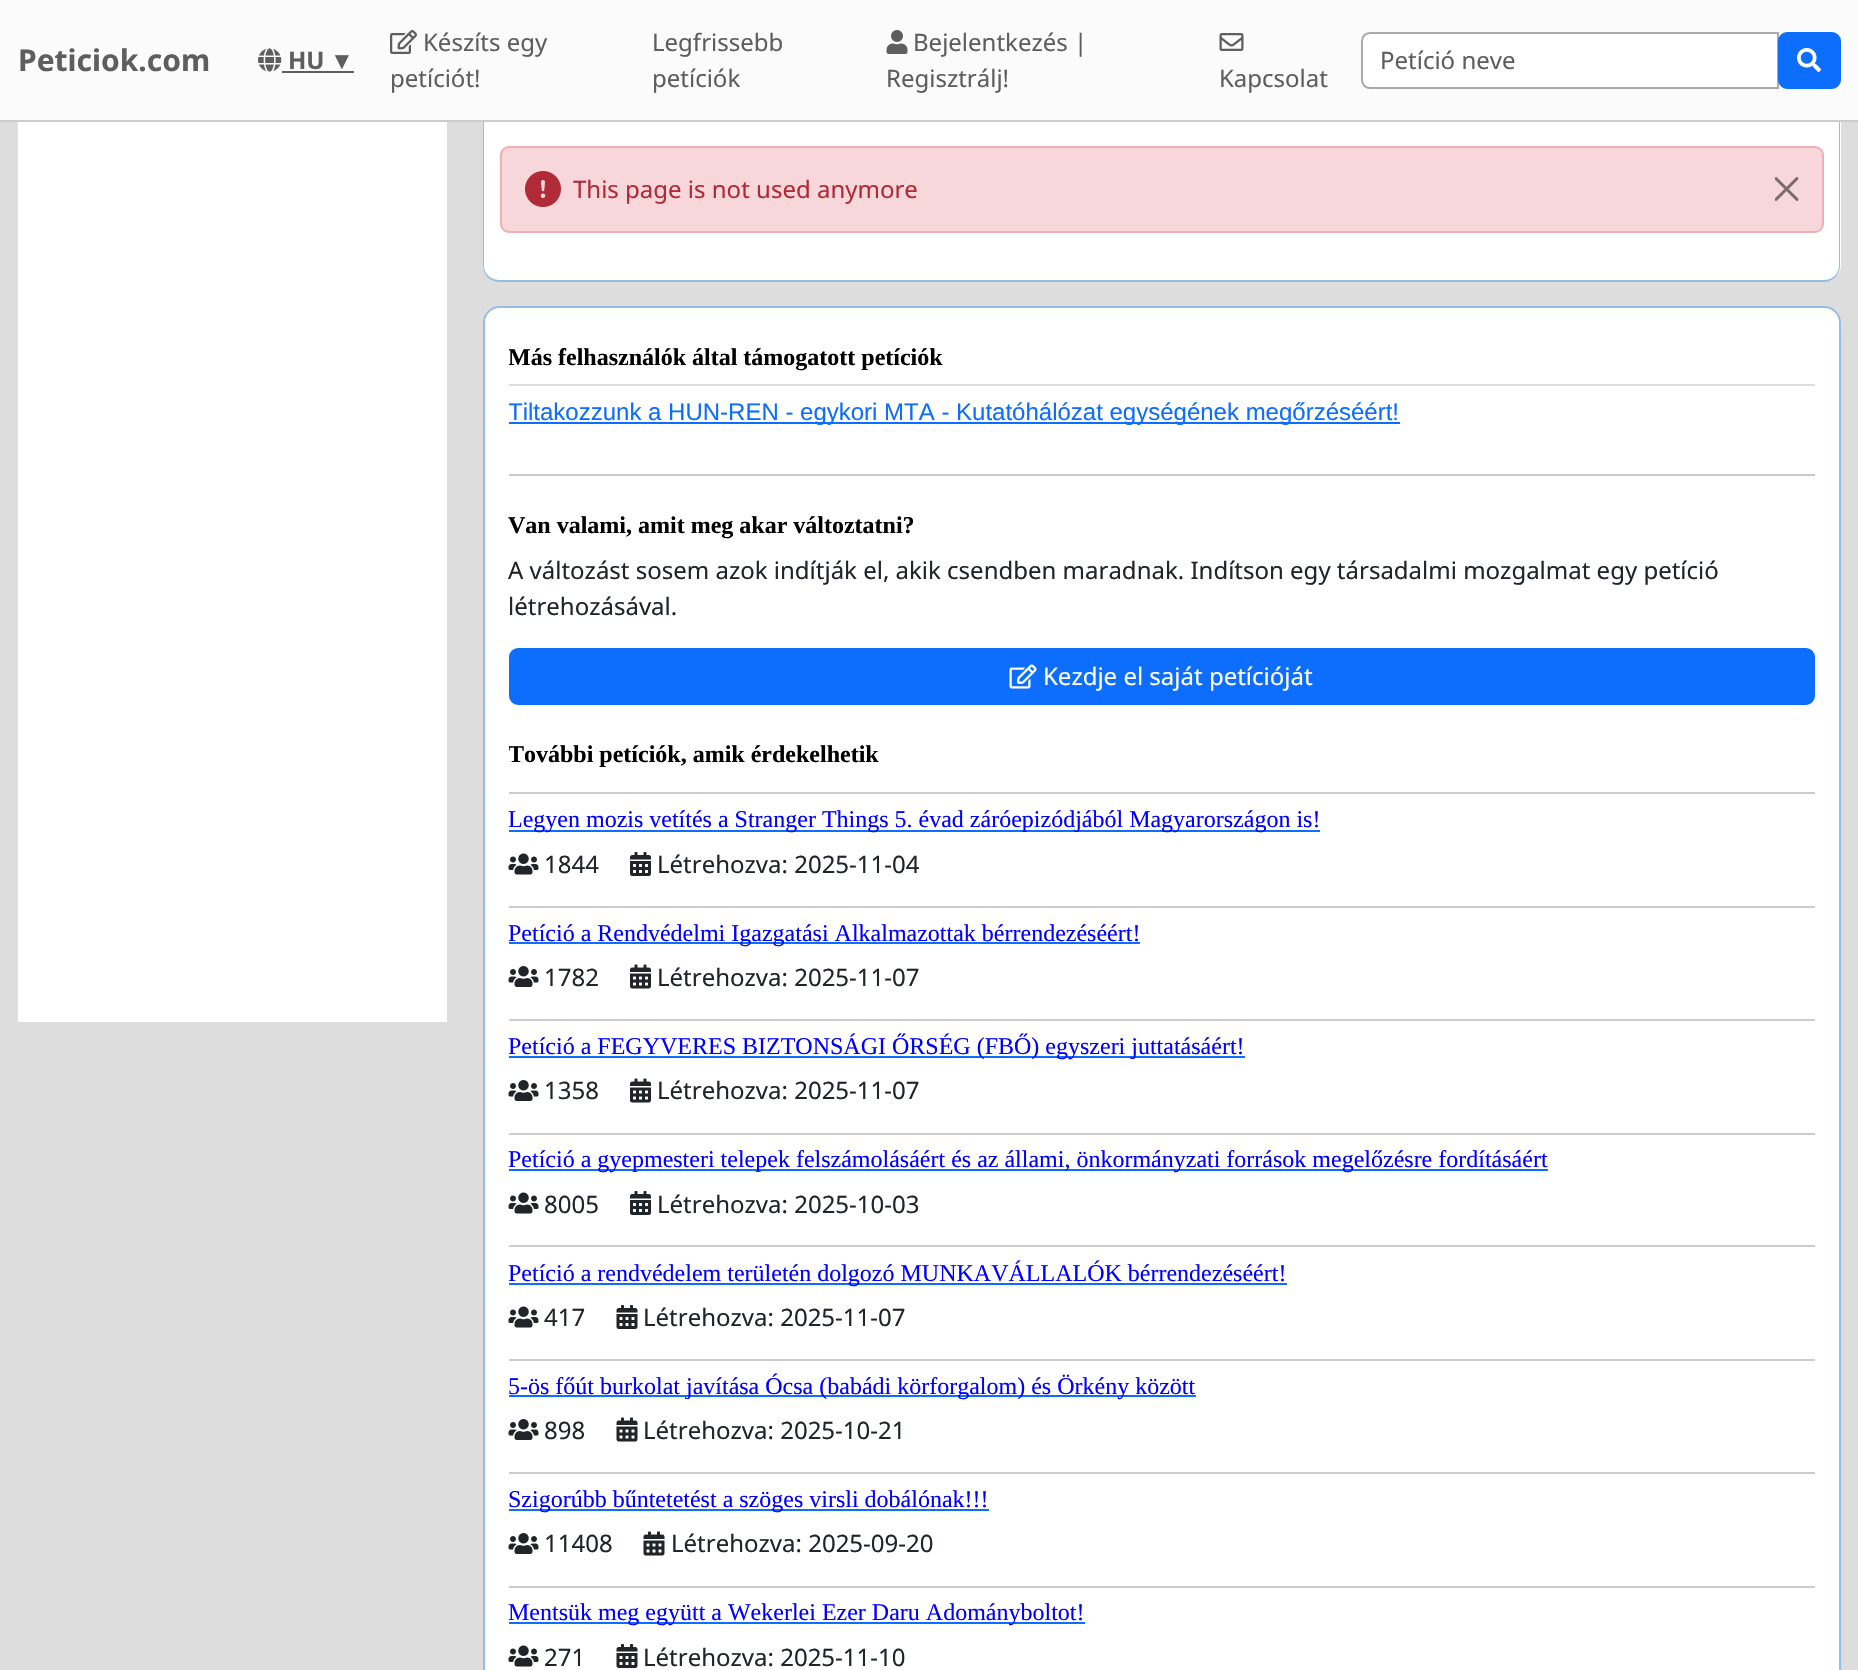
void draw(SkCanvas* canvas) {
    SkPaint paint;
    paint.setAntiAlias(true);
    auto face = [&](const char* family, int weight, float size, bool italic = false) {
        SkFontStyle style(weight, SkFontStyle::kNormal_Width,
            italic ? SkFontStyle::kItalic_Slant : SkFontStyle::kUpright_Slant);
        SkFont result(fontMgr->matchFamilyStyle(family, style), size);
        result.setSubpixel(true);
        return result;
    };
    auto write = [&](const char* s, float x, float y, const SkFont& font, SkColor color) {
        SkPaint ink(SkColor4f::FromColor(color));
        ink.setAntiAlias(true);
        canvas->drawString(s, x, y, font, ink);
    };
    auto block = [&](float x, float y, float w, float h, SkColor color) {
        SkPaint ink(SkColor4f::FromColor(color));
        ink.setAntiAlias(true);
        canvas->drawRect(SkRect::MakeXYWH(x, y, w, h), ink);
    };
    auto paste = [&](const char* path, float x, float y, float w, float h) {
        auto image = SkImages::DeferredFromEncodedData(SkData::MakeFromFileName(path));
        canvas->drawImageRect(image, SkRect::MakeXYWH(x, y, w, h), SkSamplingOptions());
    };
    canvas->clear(SkColorSetRGB(221, 221, 221));
    block(0, 0, 1858, 120, SkColorSetRGB(251, 251, 251));
    block(0, 120, 1858, 2, SkColorSetRGB(204, 204, 204));
    auto kFont1 = face("Noto Sans", 700, 30);
    write("Peticiok.com", 18, 71, kFont1, SkColorSetRGB(94, 94, 94));
    paste("pic1.png", 258, 48, 24, 24);
    auto kFont2 = face("Noto Sans", 700, 24);
    write("HU", 288, 69, kFont2, SkColorSetRGB(94, 94, 94));
    block(282, 71, 72, 2, SkColorSetRGB(94, 94, 94));
    auto kFont3 = face("Liberation Sans", 400, 24);
    write("▼", 330, 69, kFont3, SkColorSetRGB(94, 94, 94));
    paste("pic2.png", 390, 30, 27, 24);
    auto kFont4 = face("Noto Sans", 400, 24);
    write("Készíts egy", 423, 51, kFont4, SkColorSetRGB(94, 94, 94));
    write("petíciót!", 390, 87, kFont4, SkColorSetRGB(94, 94, 94));
    write("Legfrissebb", 652, 51, kFont4, SkColorSetRGB(94, 94, 94));
    write("petíciók", 652, 87, kFont4, SkColorSetRGB(94, 94, 94));
    paste("pic3.png", 886, 30, 22, 24);
    write("Bejelentkezés |", 913, 51, kFont4, SkColorSetRGB(94, 94, 94));
    write("Regisztrálj!", 886, 87, kFont4, SkColorSetRGB(94, 94, 94));
    paste("pic4.png", 1219, 33, 25, 18);
    write("Kapcsolat", 1219, 87, kFont4, SkColorSetRGB(94, 94, 94));
    paint.setColor(SK_ColorWHITE);
    canvas->drawPath(SkPathBuilder().moveTo(1370, 33).lineTo(1778, 33).lineTo(1778, 88).lineTo(1370, 88).cubicTo(1365.5f, 88, 1362, 84.5f, 1362, 80).lineTo(1362, 41).cubicTo(1362, 36.5f, 1365.5f, 33, 1370, 33).close().detach(), paint);
    paint.setStyle(SkPaint::kStroke_Style);
    paint.setStrokeWidth(2);
    paint.setColor(SkColorSetRGB(169, 169, 169));
    canvas->drawPath(SkPathBuilder().moveTo(1370, 33).lineTo(1778, 33).lineTo(1778, 88).lineTo(1370, 88).cubicTo(1365.5f, 88, 1362, 84.5f, 1362, 80).lineTo(1362, 41).cubicTo(1362, 36.5f, 1365.5f, 33, 1370, 33).close().detach(), paint);
    write("Petíció neve", 1380, 69, kFont4, SkColorSetRGB(94, 94, 94));
    paint.setStyle(SkPaint::kFill_Style);
    paint.setColor(SkColorSetRGB(13, 110, 253));
    canvas->drawRoundRect(SkRect::MakeXYWH(1779, 33, 61, 55), 8, 8, paint);
    paint.setStyle(SkPaint::kStroke_Style);
    canvas->drawRoundRect(SkRect::MakeXYWH(1779, 33, 61, 55), 8, 8, paint);
    paste("pic5.png", 1797, 48, 24, 24);
    block(18, 122, 429, 900, SK_ColorWHITE);
    paint.setStyle(SkPaint::kFill_Style);
    paint.setColor(SK_ColorWHITE);
    canvas->drawPath(SkPathBuilder().moveTo(483, 122).lineTo(1841, 122).lineTo(1841, 265).cubicTo(1841, 274.5f, 1833.5f, 282, 1824, 282).lineTo(500, 282).cubicTo(490.5f, 282, 483, 274.5f, 483, 265).close().detach(), paint);
    paint.setColor(SkColorSetRGB(149, 188, 226));
    canvas->drawPath(SkPathBuilder(SkPathFillType::kEvenOdd).moveTo(483, 122).lineTo(1840, 122).lineTo(1840, 266).cubicTo(1840, 275, 1833, 282, 1824, 282).lineTo(500, 282).cubicTo(490, 282, 483, 275, 483, 266).close().moveTo(484, 122).lineTo(1839, 122).lineTo(1839, 266).cubicTo(1839, 274, 1832, 280, 1824, 280).lineTo(500, 280).cubicTo(491, 280, 484, 274, 484, 266).close().detach(), paint);
    paint.setColor(SkColorSetRGB(248, 215, 218));
    canvas->drawRoundRect(SkRect::MakeXYWH(501, 147, 1322, 85), 8, 8, paint);
    paint.setStyle(SkPaint::kStroke_Style);
    paint.setColor(SkColorSetRGB(241, 174, 181));
    canvas->drawRoundRect(SkRect::MakeXYWH(501, 147, 1322, 85), 8, 8, paint);
    paste("pic6.png", 525, 171, 36, 36);
    write("This page is not used anymore", 573, 198, kFont4, SkColorSetRGB(176, 42, 55));
    paste("pic7.png", 1775, 177, 24, 24);
    paint.setStyle(SkPaint::kFill_Style);
    paint.setColor(SK_ColorWHITE);
    canvas->drawPath(SkPathBuilder().moveTo(500, 307).lineTo(1824, 307).cubicTo(1833, 307, 1840, 314, 1840, 323).lineTo(1840, 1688).lineTo(484, 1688).lineTo(484, 323).cubicTo(484, 314, 491, 307, 500, 307).close().detach(), paint);
    paint.setStyle(SkPaint::kStroke_Style);
    paint.setColor(SkColorSetRGB(149, 188, 226));
    canvas->drawPath(SkPathBuilder().moveTo(500, 307).lineTo(1824, 307).cubicTo(1833, 307, 1840, 314, 1840, 323).lineTo(1840, 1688).lineTo(484, 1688).lineTo(484, 323).cubicTo(484, 314, 491, 307, 500, 307).close().detach(), paint);
    canvas->save();
    canvas->clipRect(SkRect::MakeXYWH(509, 332, 1306, 40));
    auto kFont5 = face("Liberation Serif", 700, 24);
    write("Más felhasználók által támogatott petíciók", 508, 365, kFont5, SK_ColorBLACK);
    canvas->restore();
    block(509, 384, 1306, 2, SkColorSetRGB(221, 221, 221));
    block(509, 422, 891, 2, SkColorSetRGB(13, 110, 253));
    canvas->save();
    canvas->clipRect(SkRect::MakeXYWH(509, 386, 1282, 40));
    write("Tiltakozzunk a HUN-REN - egykori MTA - Kutatóhálózat egységének megőrzéséért!", 508, 420, kFont3, SkColorSetRGB(13, 110, 253));
    canvas->restore();
    block(509, 474, 1306, 2, SkColorSetRGB(200, 201, 202));
    write("Van valami, amit meg akar változtatni?", 508, 533, kFont5, SK_ColorBLACK);
    write("A változást sosem azok indítják el, akik csendben maradnak. Indítson egy társadalmi mozgalmat egy petíció", 508, 579, kFont4, SkColorSetRGB(33, 37, 41));
    write("létrehozásával.", 508, 615, kFont4, SkColorSetRGB(33, 37, 41));
    paint.setStyle(SkPaint::kFill_Style);
    paint.setColor(SkColorSetRGB(13, 110, 253));
    canvas->drawRoundRect(SkRect::MakeXYWH(510, 649, 1304, 55), 8, 8, paint);
    paint.setStyle(SkPaint::kStroke_Style);
    canvas->drawRoundRect(SkRect::MakeXYWH(510, 649, 1304, 55), 8, 8, paint);
    paste("pic8.png", 1009, 664, 28, 25);
    write("Kezdje el saját petícióját", 1043, 685, kFont4, SK_ColorWHITE);
    canvas->save();
    canvas->clipRect(SkRect::MakeXYWH(509, 729, 1306, 39));
    write("További petíciók, amik érdekelhetik", 508, 762, kFont5, SK_ColorBLACK);
    canvas->restore();
    block(509, 792, 1306, 2, SkColorSetRGB(204, 204, 204));
    block(509, 830, 811, 2, SkColorSetRGB(13, 110, 253));
    auto kFont6 = face("Liberation Serif", 400, 24);
    write("Legyen mozis vetítés a Stranger Things 5. évad záróepizódjából Magyarországon is!", 508, 827, kFont6, SkColorSetRGB(0, 0, 255));
    paste("pic9.png", 508, 853, 31, 22);
    write("1844", 544, 873, kFont4, SkColorSetRGB(33, 37, 41));
    paste("pic10.png", 630, 852, 21, 24);
    write("Létrehozva: 2025-11-04", 657, 873, kFont4, SkColorSetRGB(33, 37, 41));
    block(509, 906, 1306, 2, SkColorSetRGB(204, 204, 204));
    block(509, 942, 631, 2, SkColorSetRGB(13, 110, 253));
    write("Petíció a Rendvédelmi Igazgatási Alkalmazottak bérrendezéséért!", 508, 941, kFont6, SkColorSetRGB(0, 0, 255));
    paste("pic11.png", 508, 966, 31, 21);
    write("1782", 544, 986, kFont4, SkColorSetRGB(33, 37, 41));
    paste("pic12.png", 630, 964, 21, 25);
    write("Létrehozva: 2025-11-07", 657, 986, kFont4, SkColorSetRGB(33, 37, 41));
    block(509, 1019, 1306, 2, SkColorSetRGB(204, 204, 204));
    block(509, 1056, 736, 2, SkColorSetRGB(13, 110, 253));
    write("Petíció a FEGYVERES BIZTONSÁGI ŐRSÉG (FBŐ) egyszeri juttatásáért!", 508, 1054, kFont6, SkColorSetRGB(0, 0, 255));
    paste("pic11.png", 508, 1080, 31, 21);
    write("1358", 544, 1099, kFont4, SkColorSetRGB(33, 37, 41));
    paste("pic12.png", 630, 1078, 21, 25);
    write("Létrehozva: 2025-11-07", 657, 1099, kFont4, SkColorSetRGB(33, 37, 41));
    block(509, 1133, 1306, 2, SkColorSetRGB(204, 204, 204));
    block(509, 1169, 1039, 2, SkColorSetRGB(13, 110, 253));
    write("Petíció a gyepmesteri telepek felszámolásáért és az állami, önkormányzati források megelőzésre fordításáért", 508, 1167, kFont6, SkColorSetRGB(0, 0, 255));
    paste("pic9.png", 508, 1192, 31, 22);
    write("8005", 544, 1213, kFont4, SkColorSetRGB(33, 37, 41));
    paste("pic10.png", 630, 1191, 21, 24);
    write("Létrehozva: 2025-10-03", 657, 1213, kFont4, SkColorSetRGB(33, 37, 41));
    block(509, 1245, 1306, 2, SkColorSetRGB(204, 204, 204));
    block(509, 1283, 778, 2, SkColorSetRGB(13, 110, 253));
    write("Petíció a rendvédelem területén dolgozó MUNKAVÁLLALÓK bérrendezéséért!", 508, 1281, kFont6, SkColorSetRGB(0, 0, 255));
    paste("pic9.png", 508, 1306, 31, 22);
    write("417", 544, 1326, kFont4, SkColorSetRGB(33, 37, 41));
    paste("pic13.png", 616, 1305, 22, 24);
    write("Létrehozva: 2025-11-07", 643, 1326, kFont4, SkColorSetRGB(33, 37, 41));
    block(509, 1359, 1306, 2, SkColorSetRGB(204, 204, 204));
    block(509, 1395, 687, 2, SkColorSetRGB(13, 110, 253));
    write("5-ös főút burkolat javítása Ócsa (babádi körforgalom) és Örkény között", 508, 1394, kFont6, SkColorSetRGB(0, 0, 255));
    paste("pic11.png", 508, 1419, 31, 21);
    write("898", 544, 1439, kFont4, SkColorSetRGB(33, 37, 41));
    paste("pic14.png", 616, 1417, 22, 25);
    write("Létrehozva: 2025-10-21", 643, 1439, kFont4, SkColorSetRGB(33, 37, 41));
    block(509, 1472, 1306, 2, SkColorSetRGB(204, 204, 204));
    block(509, 1509, 480, 2, SkColorSetRGB(13, 110, 253));
    write("Szigorúbb bűntetetést a szöges virsli dobálónak!!!", 508, 1507, kFont6, SkColorSetRGB(0, 0, 255));
    paste("pic11.png", 508, 1533, 31, 21);
    write("11408", 544, 1552, kFont4, SkColorSetRGB(33, 37, 41));
    paste("pic14.png", 643, 1531, 22, 25);
    write("Létrehozva: 2025-09-20", 671, 1552, kFont4, SkColorSetRGB(33, 37, 41));
    block(509, 1586, 1306, 2, SkColorSetRGB(204, 204, 204));
    block(509, 1622, 576, 2, SkColorSetRGB(13, 110, 253));
    write("Mentsük meg együtt a Wekerlei Ezer Daru Adományboltot!", 508, 1620, kFont6, SkColorSetRGB(0, 0, 255));
    paste("pic9.png", 508, 1645, 31, 22);
    write("271", 544, 1666, kFont4, SkColorSetRGB(33, 37, 41));
    paste("pic13.png", 616, 1644, 22, 24);
    write("Létrehozva: 2025-11-10", 643, 1666, kFont4, SkColorSetRGB(33, 37, 41));
}
